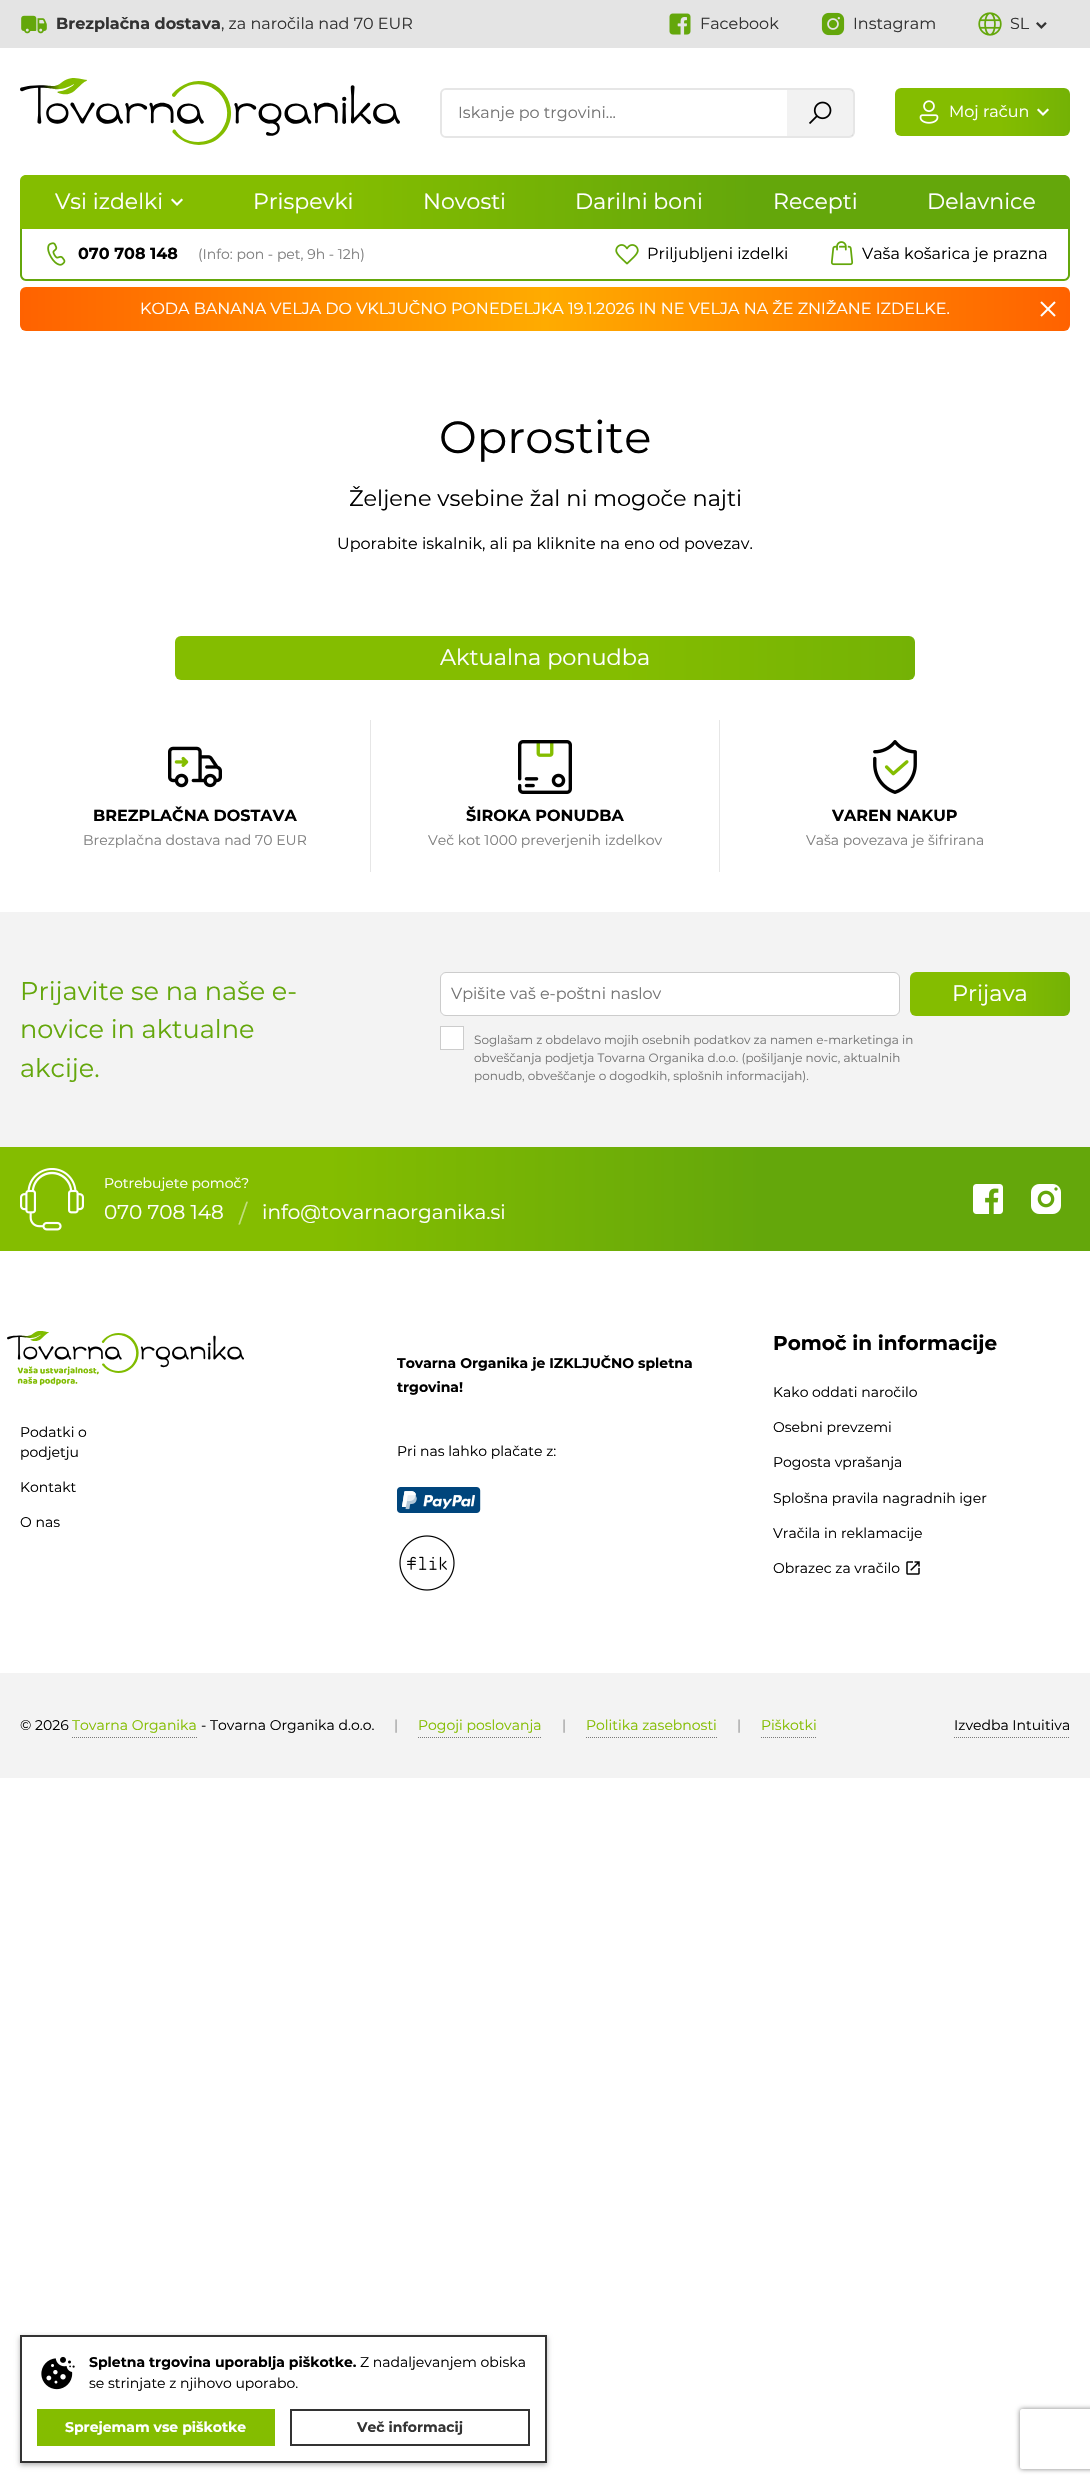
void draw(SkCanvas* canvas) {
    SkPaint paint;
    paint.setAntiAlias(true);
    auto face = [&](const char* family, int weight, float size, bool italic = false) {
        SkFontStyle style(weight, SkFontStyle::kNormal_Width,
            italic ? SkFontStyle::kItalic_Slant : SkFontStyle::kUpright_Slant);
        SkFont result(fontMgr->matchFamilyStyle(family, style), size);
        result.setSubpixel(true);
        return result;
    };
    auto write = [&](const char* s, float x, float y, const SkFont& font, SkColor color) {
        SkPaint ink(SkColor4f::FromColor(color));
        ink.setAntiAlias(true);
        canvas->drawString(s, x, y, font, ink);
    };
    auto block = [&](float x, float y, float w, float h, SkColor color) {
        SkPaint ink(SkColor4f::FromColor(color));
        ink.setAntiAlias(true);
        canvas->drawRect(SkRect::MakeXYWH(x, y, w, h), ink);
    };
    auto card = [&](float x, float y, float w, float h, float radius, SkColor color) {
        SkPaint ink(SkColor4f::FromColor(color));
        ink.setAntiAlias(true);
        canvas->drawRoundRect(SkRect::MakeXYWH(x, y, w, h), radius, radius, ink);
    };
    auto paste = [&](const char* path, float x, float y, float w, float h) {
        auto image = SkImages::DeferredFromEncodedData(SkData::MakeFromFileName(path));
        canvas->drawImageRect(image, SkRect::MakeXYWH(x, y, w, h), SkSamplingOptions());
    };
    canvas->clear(SK_ColorWHITE);
    block(0, 0, 1090, 48, SkColorSetRGB(228, 228, 228));
    paste("pic1.png", 21, 15, 26, 19);
    auto kFont1 = face("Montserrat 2", 100, 16);
    write("Brezplačna dostava", 56, 29, kFont1, SkColorSetRGB(51, 51, 51));
    auto kFont2 = face("Montserrat", 100, 16);
    write(", za naročila nad 70 EUR", 221, 29, kFont2, SkColorSetRGB(51, 51, 51));
    paste("pic2.png", 669, 13, 22, 22);
    write("Facebook", 700, 29, kFont2, SkColorSetRGB(51, 51, 51));
    paste("pic3.png", 821, 12, 24, 24);
    write("Instagram", 853, 29, kFont2, SkColorSetRGB(51, 51, 51));
    paste("pic4.png", 978, 12, 24, 24);
    write("SL", 1010, 29, kFont2, SkColorSetRGB(51, 51, 51));
    paste("pic5.png", 1036, 22, 11, 7);
    paste("pic6.png", 20, 78, 380, 67);
    paint.setStyle(SkPaint::kStroke_Style);
    paint.setStrokeWidth(2);
    paint.setColor(SkColorSetRGB(230, 230, 230));
    canvas->drawRoundRect(SkRect::MakeXYWH(441, 89, 413, 48), 5, 5, paint);
    paint.setStyle(SkPaint::kFill_Style);
    paint.setColor(SK_ColorWHITE);
    canvas->drawPath(SkPathBuilder().moveTo(446, 90).lineTo(787, 90).lineTo(787, 136).lineTo(446, 136).cubicTo(444, 136, 442, 134, 442, 132).lineTo(442, 94).cubicTo(442, 92, 444, 90, 446, 90).close().detach(), paint);
    write("Iskanje po trgovini...", 458, 118, kFont2, SkColorSetRGB(117, 117, 117));
    block(787, 90, 66, 46, SkColorSetARGB(13, 0, 0, 0));
    paste("pic7.png", 809, 101, 23, 23);
    {
        const SkColor colors[] = {SkColorSetRGB(132, 189, 0), SkColorSetRGB(132, 189, 0), SkColorSetRGB(100, 167, 11), SkColorSetRGB(100, 167, 11)};
        const float stops[] = {0, 0.3f, 0.7f, 1};
        const SkPoint ends[] = {{895, 112}, {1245, 112}};
        paint.setShader(SkGradientShader::MakeLinear(ends, colors, stops, 4, SkTileMode::kClamp));
        paint.setAlpha(255);
    }
    canvas->drawRoundRect(SkRect::MakeXYWH(895, 88, 175, 48), 6, 6, paint);
    paste("pic8.png", 919, 100, 20, 24);
    write("Moj račun", 949, 117, kFont2, SK_ColorWHITE);
    paste("pic9.png", 1037, 108, 12, 8);
    {
        const SkColor colors[] = {SkColorSetRGB(132, 189, 0), SkColorSetRGB(132, 189, 0), SkColorSetRGB(100, 167, 11), SkColorSetRGB(100, 167, 11)};
        const float stops[] = {0, 0.3f, 0.7f, 1};
        const SkPoint ends[] = {{20, 202}, {1070, 202}};
        paint.setShader(SkGradientShader::MakeLinear(ends, colors, stops, 4, SkTileMode::kClamp));
        paint.setAlpha(255);
    }
    canvas->drawPath(SkPathBuilder().moveTo(26, 175).lineTo(1064, 175).cubicTo(1067.5f, 175, 1070, 177.5f, 1070, 181).lineTo(1070, 229).lineTo(20, 229).lineTo(20, 181).cubicTo(20, 177.5f, 22.5f, 175, 26, 175).close().detach(), paint);
    auto kFont3 = face("Montserrat", 100, 22);
    write("Vsi izdelki", 55, 209, kFont3, SK_ColorWHITE);
    paste("pic10.png", 171, 198, 12, 8);
    write("Prispevki", 253, 209, kFont3, SK_ColorWHITE);
    write("Novosti", 423, 209, kFont3, SK_ColorWHITE);
    write("Darilni boni", 575, 209, kFont3, SK_ColorWHITE);
    write("Recepti", 773, 209, kFont3, SK_ColorWHITE);
    write("Delavnice", 927, 209, kFont3, SK_ColorWHITE);
    paint.setShader(nullptr);
    paint.setColor(SkColorSetRGB(100, 167, 11));
    canvas->drawPath(SkPathBuilder(SkPathFillType::kEvenOdd).moveTo(20, 229).lineTo(1070, 229).lineTo(1070, 275).cubicTo(1070, 278, 1067, 281, 1064, 281).lineTo(26, 281).cubicTo(23, 281, 20, 278, 20, 275).close().moveTo(22, 229).lineTo(1068, 229).lineTo(1068, 275).cubicTo(1068, 277, 1066, 279, 1064, 279).lineTo(26, 279).cubicTo(24, 279, 22, 277, 22, 275).close().detach(), paint);
    paste("pic11.png", 47, 242, 19, 24);
    write("070 708 148", 78, 259, kFont1, SK_ColorBLACK);
    auto kFont4 = face("Montserrat", 100, 14);
    write("(Info: pon - pet, 9h - 12h)", 198, 259, kFont4, SkColorSetRGB(128, 128, 128));
    paste("pic12.png", 615, 244, 24, 21);
    write("Priljubljeni izdelki", 647, 259, kFont2, SK_ColorBLACK);
    paste("pic13.png", 830, 241, 24, 25);
    write("Vaša košarica je prazna", 862, 259, kFont2, SK_ColorBLACK);
    {
        const SkColor colors[] = {SkColorSetRGB(255, 98, 0), SkColorSetRGB(255, 171, 0), SkColorSetRGB(255, 98, 0)};
        const float stops[] = {0, 0.5f, 1};
        const SkPoint ends[] = {{20, 309}, {1070, 309}};
        paint.setShader(SkGradientShader::MakeLinear(ends, colors, stops, 3, SkTileMode::kClamp));
        paint.setAlpha(255);
    }
    canvas->drawRoundRect(SkRect::MakeXYWH(20, 287, 1050, 44), 6, 6, paint);
    write("KODA BANANA VELJA DO VKLJUČNO PONEDELJKA 19.1.2026 IN NE VELJA NA ŽE ZNIŽANE IZDELKE.", 140, 314, kFont2, SK_ColorWHITE);
    paste("pic14.png", 1040, 301, 16, 16);
    auto kFont5 = face("Montserrat", 100, 45);
    write("Oprostite", 439, 453, kFont5, SK_ColorBLACK);
    auto kFont6 = face("Montserrat", 100, 22.4f);
    write("Željene vsebine žal ni mogoče najti", 349, 506, kFont6, SK_ColorBLACK);
    write("Uporabite iskalnik, ali pa kliknite na eno od povezav.", 337, 549, kFont2, SK_ColorBLACK);
    {
        const SkColor colors[] = {SkColorSetRGB(132, 189, 0), SkColorSetRGB(132, 189, 0), SkColorSetRGB(100, 167, 11), SkColorSetRGB(100, 167, 11)};
        const float stops[] = {0, 0.3f, 0.7f, 1};
        const SkPoint ends[] = {{175, 658}, {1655, 658}};
        paint.setShader(SkGradientShader::MakeLinear(ends, colors, stops, 4, SkTileMode::kClamp));
        paint.setAlpha(255);
    }
    canvas->drawRoundRect(SkRect::MakeXYWH(175, 636, 740, 44), 6, 6, paint);
    write("Aktualna ponudba", 440, 665, kFont6, SK_ColorWHITE);
    paste("pic15.png", 168, 746, 54, 42);
    write("BREZPLAČNA DOSTAVA", 93, 821, kFont1, SK_ColorBLACK);
    write("Brezplačna dostava nad 70 EUR", 83, 845, kFont4, SkColorSetRGB(128, 128, 128));
    block(719, 720, 1, 152, SkColorSetRGB(230, 230, 230));
    block(370, 720, 1, 152, SkColorSetRGB(230, 230, 230));
    paste("pic16.png", 518, 740, 54, 54);
    write("ŠIROKA PONUDBA", 466, 821, kFont1, SK_ColorBLACK);
    write("Več kot 1000 preverjenih izdelkov", 428, 845, kFont4, SkColorSetRGB(128, 128, 128));
    paste("pic17.png", 873, 740, 44, 54);
    write("VAREN NAKUP", 832, 821, kFont1, SK_ColorBLACK);
    write("Vaša povezava je šifrirana", 806, 845, kFont4, SkColorSetRGB(128, 128, 128));
    block(0, 912, 1090, 235, SkColorSetRGB(243, 243, 243));
    auto kFont7 = face("Montserrat", 100, 25.6f);
    write("Prijavite se na naše e-", 20, 1000, kFont7, SkColorSetRGB(100, 167, 11));
    write("novice in aktualne", 20, 1038, kFont7, SkColorSetRGB(100, 167, 11));
    write("akcije.", 20, 1077, kFont7, SkColorSetRGB(100, 167, 11));
    card(440, 972, 460, 44, 6, SK_ColorWHITE);
    paint.setStyle(SkPaint::kStroke_Style);
    paint.setStrokeWidth(1);
    paint.setShader(nullptr);
    paint.setColor(SkColorSetARGB(51, 0, 0, 0));
    canvas->drawRoundRect(SkRect::MakeXYWH(440.5f, 972.5f, 459, 43), 5.5f, 5.5f, paint);
    write("Vpišite vaš e-poštni naslov", 451, 999, kFont2, SkColorSetRGB(117, 117, 117));
    paint.setStyle(SkPaint::kFill_Style);
    {
        const SkColor colors[] = {SkColorSetRGB(132, 189, 0), SkColorSetRGB(132, 189, 0), SkColorSetRGB(100, 167, 11), SkColorSetRGB(100, 167, 11)};
        const float stops[] = {0, 0.3f, 0.7f, 1};
        const SkPoint ends[] = {{910, 994}, {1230, 994}};
        paint.setShader(SkGradientShader::MakeLinear(ends, colors, stops, 4, SkTileMode::kClamp));
        paint.setAlpha(255);
    }
    canvas->drawRoundRect(SkRect::MakeXYWH(910, 972, 160, 44), 6, 6, paint);
    write("Prijava", 952, 1001, kFont6, SK_ColorWHITE);
    paint.setShader(nullptr);
    paint.setColor(SK_ColorWHITE);
    canvas->drawRect(SkRect::MakeXYWH(440.5f, 1026.5f, 23, 23), paint);
    paint.setStyle(SkPaint::kStroke_Style);
    paint.setColor(SkColorSetRGB(204, 204, 204));
    canvas->drawRect(SkRect::MakeXYWH(440.5f, 1026.5f, 23, 23), paint);
    auto kFont8 = face("Montserrat", 100, 12);
    write("Soglašam z obdelavo mojih osebnih podatkov za namen e-marketinga in", 474, 1044, kFont8, SkColorSetRGB(117, 117, 117));
    write("obveščanja podjetja Tovarna Organika d.o.o. (pošiljanje novic, aktualnih", 474, 1062, kFont8, SkColorSetRGB(117, 117, 117));
    write("ponudb, obveščanje o dogodkih, splošnih informacijah).", 474, 1080, kFont8, SkColorSetRGB(117, 117, 117));
    canvas->save();
    canvas->clipPath(SkPathBuilder(SkPathFillType::kEvenOdd).moveTo(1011, 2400).lineTo(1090, 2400).lineTo(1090, 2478).lineTo(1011, 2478).close().moveTo(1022, 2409).lineTo(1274, 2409).cubicTo(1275, 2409, 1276, 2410, 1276, 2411).lineTo(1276, 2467).cubicTo(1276, 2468, 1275, 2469, 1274, 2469).lineTo(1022, 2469).cubicTo(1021, 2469, 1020, 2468, 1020, 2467).lineTo(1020, 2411).cubicTo(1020, 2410, 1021, 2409, 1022, 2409).close().detach(), true);
    paint.setStyle(SkPaint::kFill_Style);
    paint.setColor(SkColorSetRGB(128, 128, 128));
    paint.setMaskFilter(SkMaskFilter::MakeBlur(kNormal_SkBlurStyle, 2.5f));
    canvas->drawRoundRect(SkRect::MakeXYWH(1020, 2409, 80, 60), 2, 2, paint);
    paint.setMaskFilter(nullptr);
    canvas->restore();
    {
        const SkColor colors[] = {SkColorSetRGB(132, 189, 0), SkColorSetRGB(132, 189, 0), SkColorSetRGB(100, 167, 11), SkColorSetRGB(100, 167, 11)};
        const float stops[] = {0, 0.3f, 0.7f, 1};
        const SkPoint ends[] = {{0, 1199}, {1090, 1199}};
        paint.setShader(SkGradientShader::MakeLinear(ends, colors, stops, 4, SkTileMode::kClamp));
        paint.setAlpha(255);
    }
    canvas->drawRect(SkRect::MakeXYWH(0, 1147, 1090, 104), paint);
    paste("pic18.png", 20, 1168, 64, 63);
    write("Potrebujete pomoč?", 104, 1188, kFont4, SK_ColorWHITE);
    auto kFont9 = face("Montserrat", 100, 20);
    write("070 708 148", 104, 1219, kFont9, SK_ColorWHITE);
    auto kFont10 = face("Montserrat", 100, 24);
    write("/", 239, 1222, kFont10, SkColorSetRGB(194, 222, 128));
    write("info@tovarnaorganika.si", 262, 1219, kFont9, SK_ColorWHITE);
    paste("pic19.png", 973, 1184, 30, 30);
    paste("pic20.png", 1031, 1184, 30, 30);
    auto kFont11 = face("Montserrat 2", 100, 14);
    write("Tovarna Organika je IZKLJUČNO spletna", 397, 1368, kFont11, SK_ColorBLACK);
    write("trgovina!", 397, 1392, kFont11, SK_ColorBLACK);
    write("Pri nas lahko plačate z:", 397, 1456, kFont4, SK_ColorBLACK);
    paste("pic21.png", 397, 1487, 84, 26);
    paste("pic22.png", 399, 1535, 56, 56);
    auto kFont12 = face("Montserrat 2", 100, 20);
    write("Pomoč in informacije", 773, 1350, kFont12, SK_ColorBLACK);
    write("Kako oddati naročilo", 773, 1397, kFont4, SK_ColorBLACK);
    write("Osebni prevzemi", 773, 1432, kFont4, SK_ColorBLACK);
    write("Pogosta vprašanja", 773, 1467, kFont4, SK_ColorBLACK);
    write("Splošna pravila nagradnih iger", 773, 1503, kFont4, SK_ColorBLACK);
    write("Vračila in reklamacije", 773, 1538, kFont4, SK_ColorBLACK);
    write("Obrazec za vračilo", 773, 1573, kFont4, SK_ColorBLACK);
    paste("pic23.png", 906, 1561, 14, 14);
    paste("pic24.png", 7, 1331, 237, 55);
    write("Podatki o", 20, 1437, kFont4, SK_ColorBLACK);
    write("podjetju", 20, 1457, kFont4, SK_ColorBLACK);
    write("Kontakt", 20, 1492, kFont4, SK_ColorBLACK);
    write("O nas", 20, 1527, kFont4, SK_ColorBLACK);
    block(0, 1673, 1090, 105, SkColorSetRGB(243, 243, 243));
    write("© 2026", 20, 1730, kFont4, SK_ColorBLACK);
    paint.setStyle(SkPaint::kStroke_Style);
    paint.setShader(nullptr);
    paint.setColor(SkColorSetRGB(122, 122, 122));
    paint.setPathEffect(SkDashPathEffect::Make({{1, 1}}, 0));
    canvas->drawPath(SkPathBuilder().moveTo(72, 1737.5f).lineTo(197, 1737.5f).detach(), paint);
    paint.setPathEffect(nullptr);
    write("Tovarna Organika", 72, 1730, kFont4, SkColorSetRGB(132, 189, 0));
    write("- Tovarna Organika d.o.o.", 201, 1730, kFont4, SK_ColorBLACK);
    write("|", 394, 1730, kFont4, SkColorSetRGB(146, 146, 146));
    paint.setPathEffect(SkDashPathEffect::Make({{1, 1}}, 0));
    canvas->drawPath(SkPathBuilder().moveTo(418, 1737.5f).lineTo(542, 1737.5f).detach(), paint);
    paint.setPathEffect(nullptr);
    write("Pogoji poslovanja", 418, 1730, kFont4, SkColorSetRGB(132, 189, 0));
    write("|", 562, 1730, kFont4, SkColorSetRGB(146, 146, 146));
    paint.setPathEffect(SkDashPathEffect::Make({{1, 1}}, 0));
    canvas->drawPath(SkPathBuilder().moveTo(586, 1737.5f).lineTo(717, 1737.5f).detach(), paint);
    paint.setPathEffect(nullptr);
    write("Politika zasebnosti", 586, 1730, kFont4, SkColorSetRGB(132, 189, 0));
    write("|", 737, 1730, kFont4, SkColorSetRGB(146, 146, 146));
    paint.setPathEffect(SkDashPathEffect::Make({{1, 1}}, 0));
    canvas->drawPath(SkPathBuilder().moveTo(761, 1737.5f).lineTo(817, 1737.5f).detach(), paint);
    paint.setPathEffect(nullptr);
    write("Piškotki", 761, 1730, kFont4, SkColorSetRGB(132, 189, 0));
    paint.setPathEffect(SkDashPathEffect::Make({{1, 1}}, 0));
    canvas->drawPath(SkPathBuilder().moveTo(954, 1737.5f).lineTo(1070, 1737.5f).detach(), paint);
    paint.setPathEffect(nullptr);
    write("Izvedba Intuitiva", 954, 1730, kFont4, SK_ColorBLACK);
    canvas->save();
    canvas->clipPath(SkPathBuilder(SkPathFillType::kEvenOdd).moveTo(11, 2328).lineTo(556, 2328).lineTo(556, 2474).lineTo(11, 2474).close().moveTo(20, 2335).lineTo(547, 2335).lineTo(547, 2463).lineTo(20, 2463).close().detach(), true);
    paint.setStyle(SkPaint::kFill_Style);
    paint.setColor(SkColorSetARGB(77, 0, 0, 0));
    paint.setMaskFilter(SkMaskFilter::MakeBlur(kNormal_SkBlurStyle, 2.5f));
    canvas->drawRect(SkRect::MakeXYWH(20, 2337, 527, 128), paint);
    paint.setMaskFilter(nullptr);
    canvas->restore();
    paint.setStyle(SkPaint::kStroke_Style);
    paint.setStrokeWidth(2);
    paint.setColor(SkColorSetRGB(51, 51, 51));
    canvas->drawRect(SkRect::MakeXYWH(21, 2336, 525, 126), paint);
    paste("pic25.png", 41, 2356, 34, 34);
    write("Spletna trgovina uporablja piškotke.", 89, 2367, kFont11, SK_ColorBLACK);
    write("Z nadaljevanjem obiska", 360, 2367, kFont4, SK_ColorBLACK);
    write("se strinjate z njihovo uporabo.", 89, 2388, kFont4, SK_ColorBLACK);
    block(37, 2409, 238, 37, SkColorSetRGB(132, 189, 0));
    write("Sprejemam vse piškotke", 65, 2432, kFont11, SK_ColorWHITE);
    canvas->drawRect(SkRect::MakeXYWH(291, 2410, 238, 35), paint);
    write("Več informacij", 357, 2432, kFont11, SkColorSetRGB(51, 51, 51));
}
